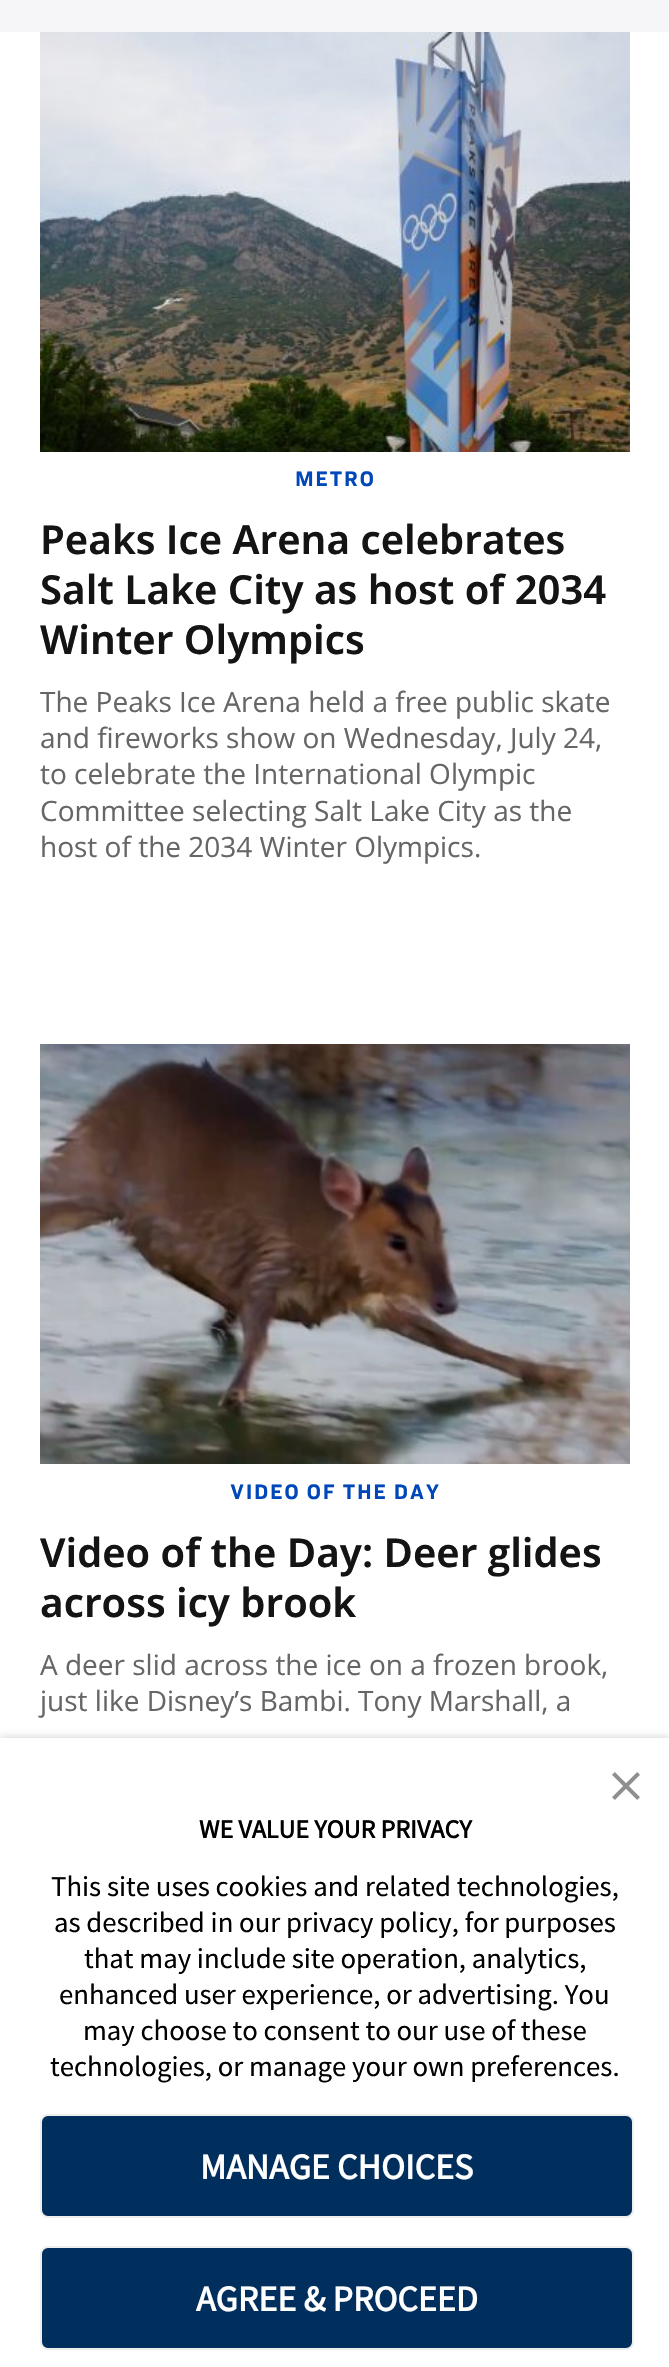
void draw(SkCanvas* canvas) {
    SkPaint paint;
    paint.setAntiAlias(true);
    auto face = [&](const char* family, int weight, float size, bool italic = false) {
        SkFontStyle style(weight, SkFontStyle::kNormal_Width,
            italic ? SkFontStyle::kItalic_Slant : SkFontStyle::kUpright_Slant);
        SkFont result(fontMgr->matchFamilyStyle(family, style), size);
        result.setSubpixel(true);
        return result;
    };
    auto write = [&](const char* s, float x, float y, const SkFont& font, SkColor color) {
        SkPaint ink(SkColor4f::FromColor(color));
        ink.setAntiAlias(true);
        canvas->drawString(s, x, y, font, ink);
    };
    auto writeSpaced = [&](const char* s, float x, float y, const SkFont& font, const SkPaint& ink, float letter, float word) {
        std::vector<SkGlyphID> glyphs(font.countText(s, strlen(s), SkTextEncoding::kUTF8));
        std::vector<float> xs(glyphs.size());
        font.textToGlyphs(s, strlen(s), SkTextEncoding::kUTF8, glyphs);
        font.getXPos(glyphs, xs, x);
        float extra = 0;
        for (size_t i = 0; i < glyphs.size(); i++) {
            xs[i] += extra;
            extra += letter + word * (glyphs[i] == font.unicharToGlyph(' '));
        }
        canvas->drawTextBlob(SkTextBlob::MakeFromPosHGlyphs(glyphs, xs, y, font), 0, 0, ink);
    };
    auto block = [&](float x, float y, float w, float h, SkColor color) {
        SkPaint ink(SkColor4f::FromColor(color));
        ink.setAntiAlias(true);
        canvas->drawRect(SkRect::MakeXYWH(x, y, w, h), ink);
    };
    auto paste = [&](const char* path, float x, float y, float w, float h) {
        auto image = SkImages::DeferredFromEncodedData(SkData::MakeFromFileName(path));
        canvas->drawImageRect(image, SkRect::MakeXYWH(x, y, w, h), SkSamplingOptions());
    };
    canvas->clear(SK_ColorWHITE);
    block(0, 0, 669, 32, SkColorSetRGB(246, 246, 248));
    paste("pic1.png", 40, 32, 590, 420);
    auto kFont1 = face("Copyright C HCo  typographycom", 400, 20);
    paint.setColor(SkColorSetRGB(0, 71, 186));
    writeSpaced("METRO", 295, 486, kFont1, paint, 1.6f, 0);
    auto kFont2 = face("Open Sans", 600, 40);
    write("Peaks Ice Arena celebrates", 40, 554, kFont2, SkColorSetRGB(20, 20, 20));
    write("Salt Lake City as host of 2034", 40, 604, kFont2, SkColorSetRGB(20, 20, 20));
    write("Winter Olympics", 40, 654, kFont2, SkColorSetRGB(20, 20, 20));
    auto kFont3 = face("Open Sans", 400, 28);
    write("The Peaks Ice Arena held a free public skate", 40, 712, kFont3, SkColorSetRGB(102, 102, 102));
    write("and fireworks show on Wednesday, July 24,", 40, 748, kFont3, SkColorSetRGB(102, 102, 102));
    write("to celebrate the International Olympic", 40, 784, kFont3, SkColorSetRGB(102, 102, 102));
    write("Committee selecting Salt Lake City as the", 40, 821, kFont3, SkColorSetRGB(102, 102, 102));
    write("host of the 2034 Winter Olympics.", 40, 857, kFont3, SkColorSetRGB(102, 102, 102));
    paste("pic2.png", 40, 1044, 590, 420);
    writeSpaced("VIDEO OF THE DAY", 230, 1499, kFont1, paint, 1.6f, 0);
    write("Video of the Day: Deer glides", 40, 1567, kFont2, SkColorSetRGB(20, 20, 20));
    write("across icy brook", 40, 1617, kFont2, SkColorSetRGB(20, 20, 20));
    write("A deer slid across the ice on a frozen brook,", 40, 1675, kFont3, SkColorSetRGB(102, 102, 102));
    write("just like Disney’s Bambi. Tony Marshall, a", 40, 1711, kFont3, SkColorSetRGB(102, 102, 102));
    paint.setColor(SkColorSetARGB(51, 0, 0, 0));
    paint.setMaskFilter(SkMaskFilter::MakeBlur(kNormal_SkBlurStyle, 4));
    canvas->drawRect(SkRect::MakeXYWH(0, 1738, 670, 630), paint);
    paint.setMaskFilter(nullptr);
    block(0, 1738, 669, 629, SK_ColorWHITE);
    paste("pic3.png", 612, 1772, 28, 28);
    auto kFont4 = face("Source Sans Pro", 700, 26);
    write("WE VALUE YOUR PRIVACY", 199, 1838, kFont4, SK_ColorBLACK);
    auto kFont5 = face("Source Sans Pro", 400, 28.75f);
    write("This site uses cookies and related technologies,", 51, 1896, kFont5, SK_ColorBLACK);
    write("as described in our privacy policy, for purposes", 54, 1932, kFont5, SK_ColorBLACK);
    write("that may include site operation, analytics,", 84, 1968, kFont5, SK_ColorBLACK);
    write("enhanced user experience, or advertising. You", 59, 2004, kFont5, SK_ColorBLACK);
    write("may choose to consent to our use of these", 83, 2040, kFont5, SK_ColorBLACK);
    write("technologies, or manage your own preferences.", 50, 2076, kFont5, SK_ColorBLACK);
    paint.setColor(SkColorSetRGB(0, 46, 93));
    canvas->drawRoundRect(SkRect::MakeXYWH(41, 2115, 592, 102), 7, 7, paint);
    paint.setStyle(SkPaint::kStroke_Style);
    paint.setStrokeWidth(2);
    paint.setColor(SkColorSetRGB(238, 238, 238));
    canvas->drawRoundRect(SkRect::MakeXYWH(41, 2115, 592, 102), 7, 7, paint);
    auto kFont6 = face("Source Sans Pro", 700, 36);
    write("MANAGE CHOICES", 200, 2179, kFont6, SK_ColorWHITE);
    paint.setStyle(SkPaint::kFill_Style);
    paint.setColor(SkColorSetRGB(0, 46, 93));
    canvas->drawRoundRect(SkRect::MakeXYWH(41, 2247, 592, 102), 7, 7, paint);
    paint.setStyle(SkPaint::kStroke_Style);
    paint.setColor(SkColorSetRGB(238, 238, 238));
    canvas->drawRoundRect(SkRect::MakeXYWH(41, 2247, 592, 102), 7, 7, paint);
    write("AGREE & PROCEED", 196, 2311, kFont6, SK_ColorWHITE);
}
